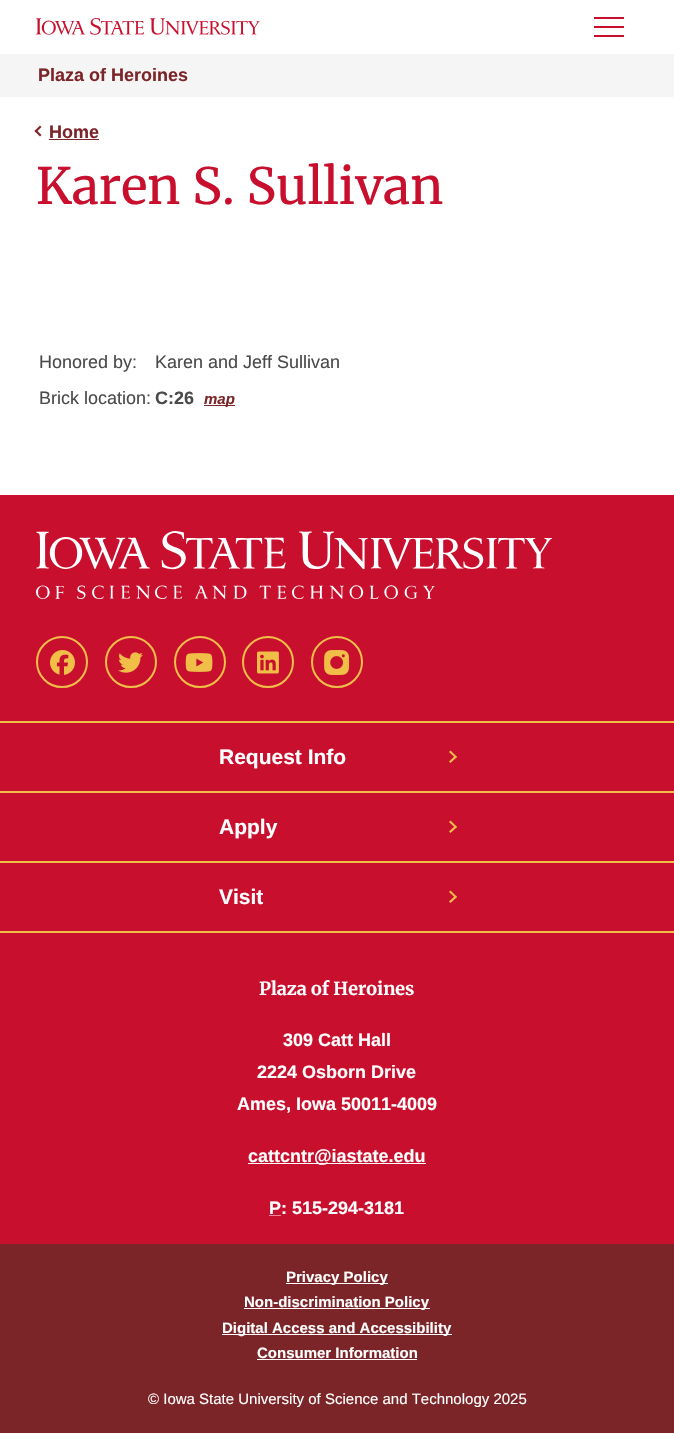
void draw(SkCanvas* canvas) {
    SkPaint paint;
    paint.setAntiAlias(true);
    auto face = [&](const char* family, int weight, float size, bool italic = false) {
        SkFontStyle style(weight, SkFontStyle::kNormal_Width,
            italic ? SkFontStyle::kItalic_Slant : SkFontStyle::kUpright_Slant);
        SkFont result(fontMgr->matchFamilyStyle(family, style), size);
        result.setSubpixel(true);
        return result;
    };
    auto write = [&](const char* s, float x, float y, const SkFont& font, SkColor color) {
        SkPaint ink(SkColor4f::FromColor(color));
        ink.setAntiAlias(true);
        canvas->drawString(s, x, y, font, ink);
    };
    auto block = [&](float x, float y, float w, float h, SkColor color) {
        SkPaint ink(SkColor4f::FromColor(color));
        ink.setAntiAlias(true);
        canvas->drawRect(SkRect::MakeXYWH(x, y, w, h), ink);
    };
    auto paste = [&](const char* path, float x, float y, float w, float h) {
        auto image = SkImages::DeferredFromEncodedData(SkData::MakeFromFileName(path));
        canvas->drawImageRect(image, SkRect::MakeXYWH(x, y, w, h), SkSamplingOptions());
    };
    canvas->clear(SK_ColorWHITE);
    block(594, 17, 30, 2, SkColorSetRGB(200, 16, 46));
    block(594, 26, 30, 2, SkColorSetRGB(200, 16, 46));
    block(594, 35, 30, 2, SkColorSetRGB(200, 16, 46));
    paste("pic1.png", 36, 18, 224, 17);
    block(0, 54, 674, 43, SkColorSetRGB(245, 245, 245));
    auto kFont1 = face("Liberation Sans", 700, 18);
    write("Plaza of Heroines", 38, 81, kFont1, SkColorSetRGB(124, 37, 41));
    paint.setColor(SkColorSetRGB(124, 37, 41));
    canvas->drawPath(SkPathBuilder().moveTo(41.5f, 135).lineTo(40, 136.5f).lineTo(34.5f, 131).lineTo(36, 129.5f).close().detach(), paint);
    canvas->drawPath(SkPathBuilder().moveTo(41.5f, 127).lineTo(36, 132.5f).lineTo(34.5f, 131).lineTo(40, 125.5f).close().detach(), paint);
    write("Home", 49, 138, kFont1, SkColorSetRGB(124, 37, 41));
    block(49, 139, 50, 1, SkColorSetRGB(124, 37, 41));
    auto kFont2 = face("Merriweather", 400, 50);
    write("Karen S. Sullivan", 36, 204, kFont2, SkColorSetRGB(200, 16, 46));
    auto kFont3 = face("Liberation Sans", 400, 18);
    write("Honored by:", 39, 368, kFont3, SkColorSetRGB(74, 74, 74));
    write("Karen and Jeff Sullivan", 155, 368, kFont3, SkColorSetRGB(74, 74, 74));
    write("Brick location:", 39, 404, kFont3, SkColorSetRGB(74, 74, 74));
    write("C:26", 155, 404, kFont1, SkColorSetRGB(74, 74, 74));
    block(204, 405, 31, 1, SkColorSetRGB(124, 37, 41));
    auto kFont4 = face("Liberation Sans", 700, 15, true);
    write("map", 204, 404, kFont4, SkColorSetRGB(124, 37, 41));
    block(0, 495, 674, 749, SkColorSetRGB(200, 16, 46));
    paste("pic2.png", 36, 531, 516, 68);
    paint.setStyle(SkPaint::kStroke_Style);
    paint.setStrokeWidth(2);
    paint.setColor(SkColorSetRGB(241, 190, 72));
    canvas->drawCircle(62, 662, 25, paint);
    paste("pic3.png", 50, 650, 25, 25);
    canvas->drawCircle(131, 662, 25, paint);
    paste("pic4.png", 118, 652, 25, 21);
    canvas->drawCircle(200, 662, 25, paint);
    paste("pic5.png", 185, 653, 28, 19);
    canvas->drawCircle(268, 662, 25, paint);
    paste("pic6.png", 257, 651, 22, 23);
    canvas->drawCircle(337, 662, 25, paint);
    paste("pic7.png", 324, 650, 26, 25);
    block(0, 721, 674, 2, SkColorSetRGB(241, 190, 72));
    block(0, 791, 674, 2, SkColorSetRGB(241, 190, 72));
    auto kFont5 = face("Liberation Sans", 700, 21);
    write("Request Info", 219, 764, kFont5, SK_ColorWHITE);
    paint.setStyle(SkPaint::kFill_Style);
    canvas->drawPath(SkPathBuilder().moveTo(449, 752).lineTo(450.5f, 750.5f).lineTo(457, 757).lineTo(455.5f, 758).close().detach(), paint);
    canvas->drawPath(SkPathBuilder().moveTo(449, 761.5f).lineTo(455.5f, 755.5f).lineTo(457, 757).lineTo(450.5f, 763).close().detach(), paint);
    block(0, 861, 674, 2, SkColorSetRGB(241, 190, 72));
    write("Apply", 219, 834, kFont5, SK_ColorWHITE);
    canvas->drawPath(SkPathBuilder().moveTo(449, 822).lineTo(450.5f, 820.5f).lineTo(457, 827).lineTo(455.5f, 828).close().detach(), paint);
    canvas->drawPath(SkPathBuilder().moveTo(449, 831.5f).lineTo(455.5f, 825.5f).lineTo(457, 827).lineTo(450.5f, 833).close().detach(), paint);
    block(0, 931, 674, 2, SkColorSetRGB(241, 190, 72));
    write("Visit", 219, 904, kFont5, SK_ColorWHITE);
    canvas->drawPath(SkPathBuilder().moveTo(449, 892).lineTo(450.5f, 890.5f).lineTo(457, 897).lineTo(455.5f, 898).close().detach(), paint);
    canvas->drawPath(SkPathBuilder().moveTo(449, 901.5f).lineTo(455.5f, 895.5f).lineTo(457, 897).lineTo(450.5f, 903).close().detach(), paint);
    auto kFont6 = face("Merriweather", 700, 18);
    write("Plaza of Heroines", 259, 995, kFont6, SK_ColorWHITE);
    write("309 Catt Hall", 283, 1046, kFont1, SK_ColorWHITE);
    write("2224 Osborn Drive", 257, 1078, kFont1, SK_ColorWHITE);
    write("Ames, Iowa 50011-4009", 237, 1110, kFont1, SK_ColorWHITE);
    block(248, 1163, 178, 1, SK_ColorWHITE);
    write("cattcntr@iastate.edu", 248, 1162, kFont1, SK_ColorWHITE);
    write("P: 515-294-3181", 269, 1214, kFont1, SK_ColorWHITE);
    paint.setStyle(SkPaint::kStroke_Style);
    paint.setStrokeWidth(1);
    paint.setColor(SK_ColorWHITE);
    paint.setPathEffect(SkDashPathEffect::Make({{1, 1}}, 0));
    canvas->drawPath(SkPathBuilder().moveTo(269.5f, 1215.5f).lineTo(281.5f, 1215.5f).detach(), paint);
    paint.setPathEffect(nullptr);
    block(0, 1244, 674, 189, SkColorSetRGB(124, 37, 41));
    block(286, 1283, 102, 1, SK_ColorWHITE);
    auto kFont7 = face("Liberation Sans", 700, 15);
    write("Privacy Policy", 286, 1282, kFont7, SK_ColorWHITE);
    block(244, 1308, 186, 1, SK_ColorWHITE);
    write("Non-discrimination Policy", 244, 1307, kFont7, SK_ColorWHITE);
    block(222, 1334, 230, 1, SK_ColorWHITE);
    write("Digital Access and Accessibility", 222, 1333, kFont7, SK_ColorWHITE);
    write("Consumer Information", 257, 1358, kFont7, SK_ColorWHITE);
    block(257, 1359, 160, 1, SK_ColorWHITE);
    auto kFont8 = face("Liberation Sans", 400, 15);
    write("© Iowa State University of Science and Technology 2025", 148, 1404, kFont8, SK_ColorWHITE);
}
